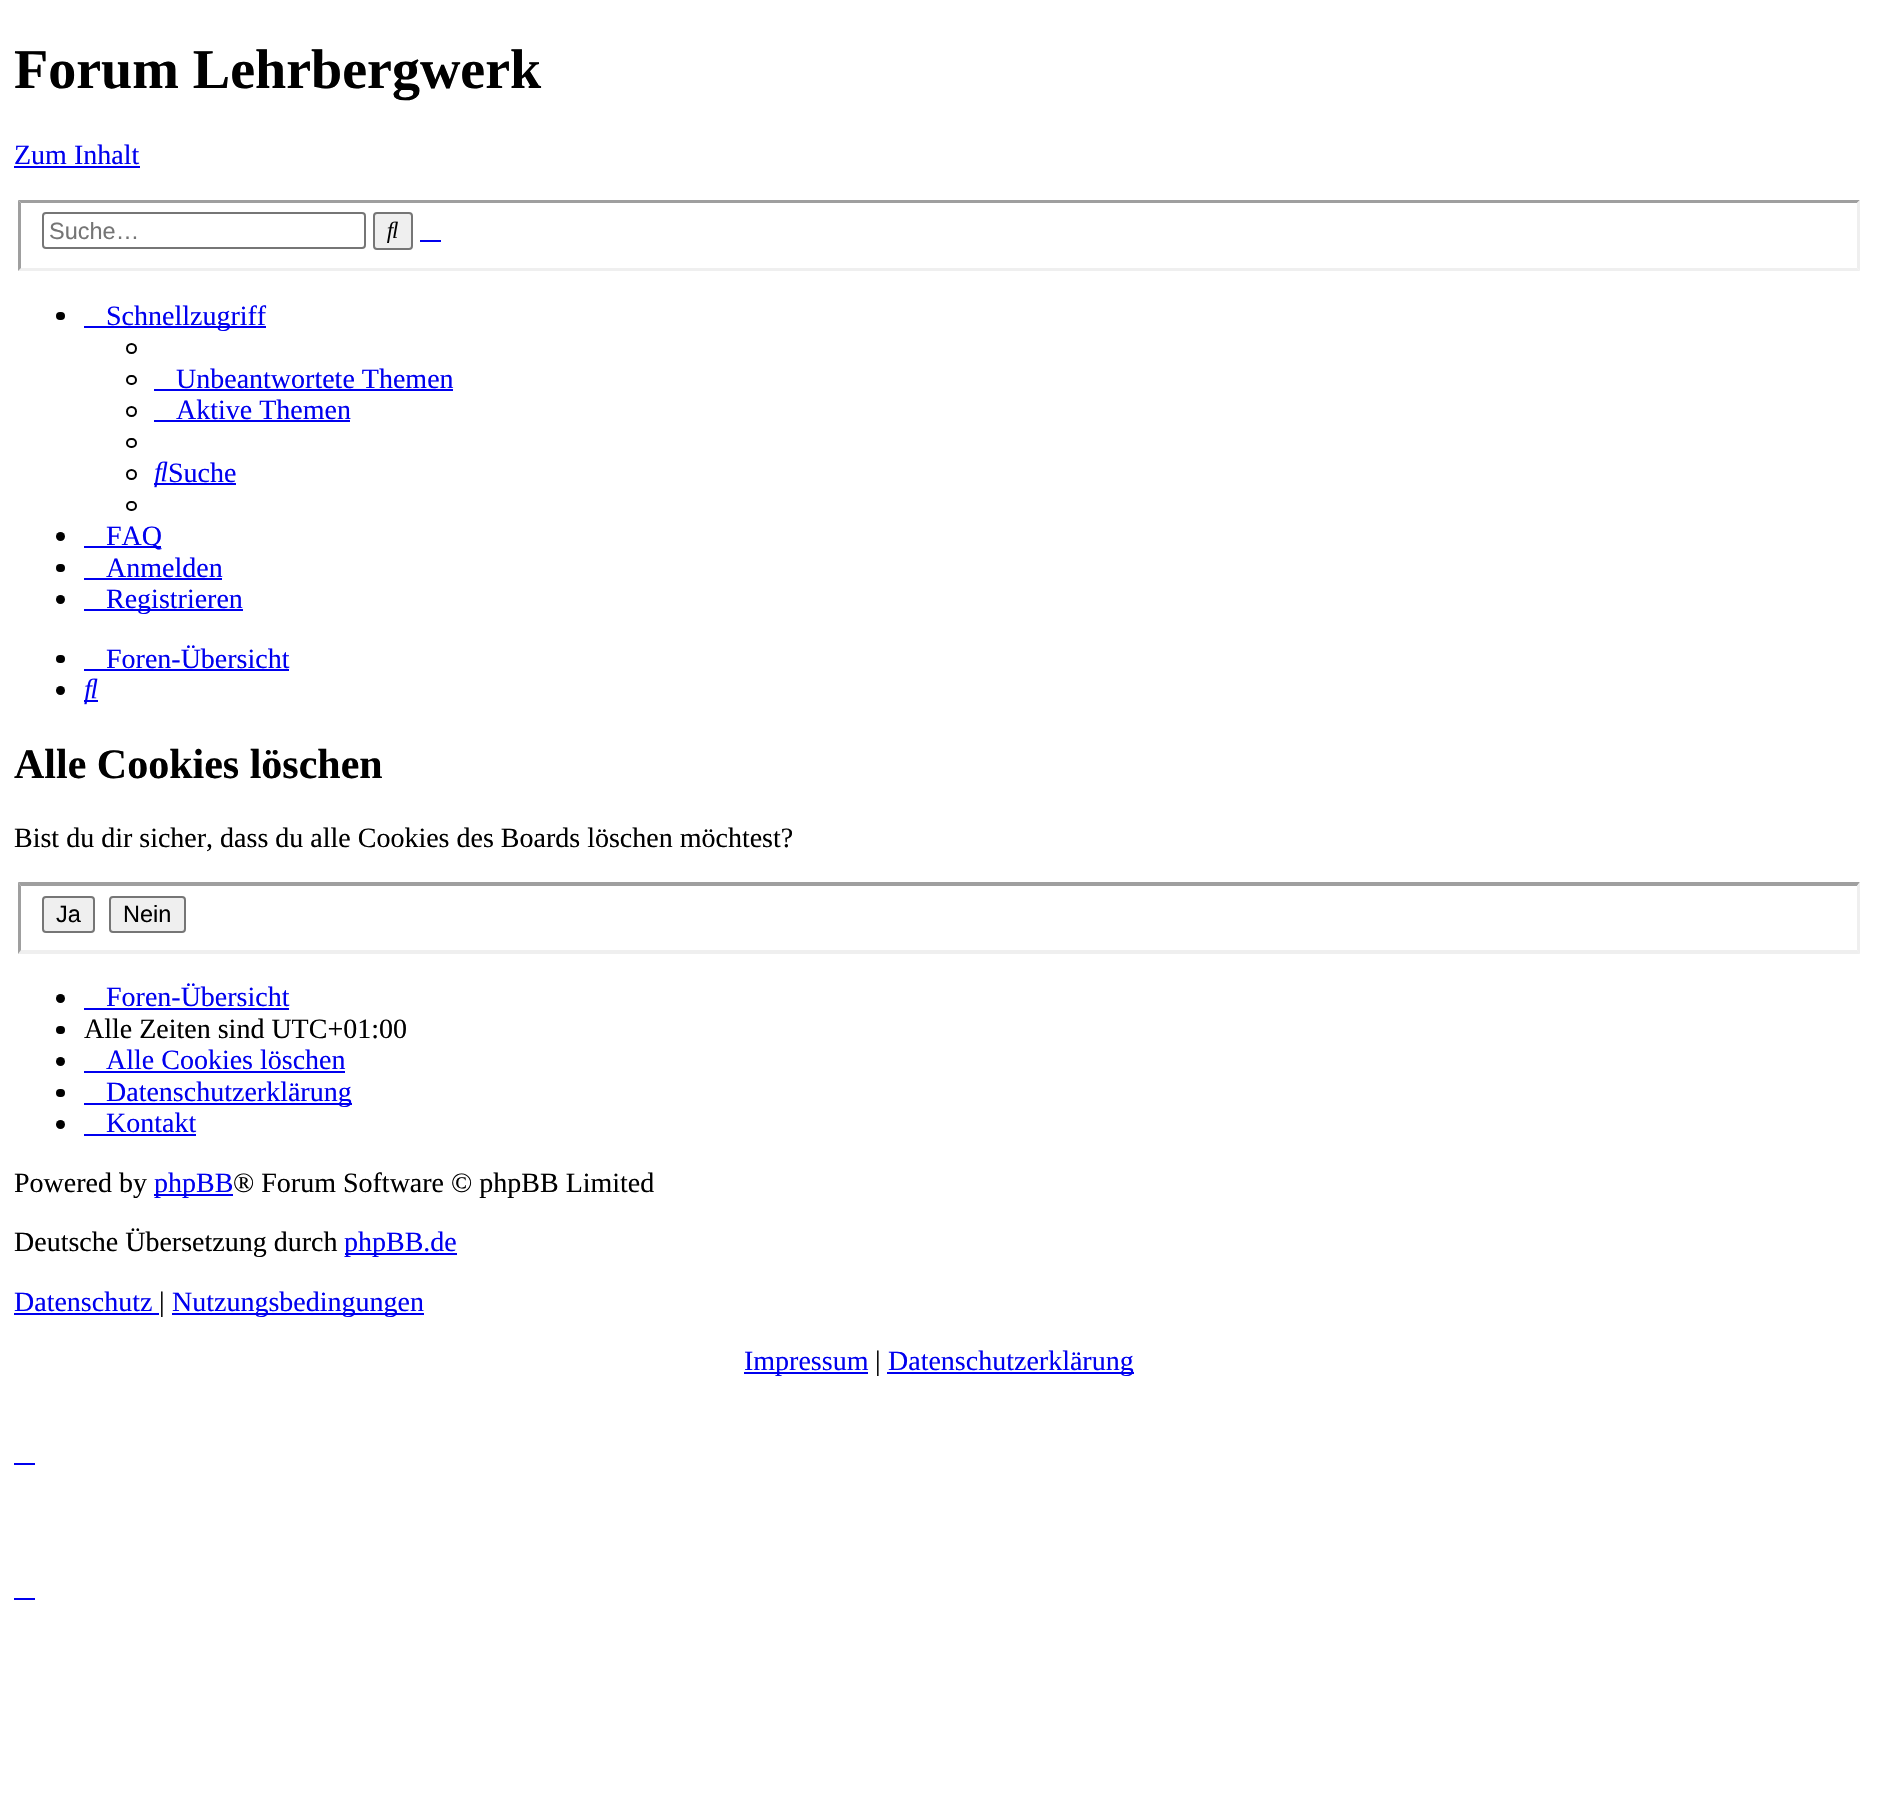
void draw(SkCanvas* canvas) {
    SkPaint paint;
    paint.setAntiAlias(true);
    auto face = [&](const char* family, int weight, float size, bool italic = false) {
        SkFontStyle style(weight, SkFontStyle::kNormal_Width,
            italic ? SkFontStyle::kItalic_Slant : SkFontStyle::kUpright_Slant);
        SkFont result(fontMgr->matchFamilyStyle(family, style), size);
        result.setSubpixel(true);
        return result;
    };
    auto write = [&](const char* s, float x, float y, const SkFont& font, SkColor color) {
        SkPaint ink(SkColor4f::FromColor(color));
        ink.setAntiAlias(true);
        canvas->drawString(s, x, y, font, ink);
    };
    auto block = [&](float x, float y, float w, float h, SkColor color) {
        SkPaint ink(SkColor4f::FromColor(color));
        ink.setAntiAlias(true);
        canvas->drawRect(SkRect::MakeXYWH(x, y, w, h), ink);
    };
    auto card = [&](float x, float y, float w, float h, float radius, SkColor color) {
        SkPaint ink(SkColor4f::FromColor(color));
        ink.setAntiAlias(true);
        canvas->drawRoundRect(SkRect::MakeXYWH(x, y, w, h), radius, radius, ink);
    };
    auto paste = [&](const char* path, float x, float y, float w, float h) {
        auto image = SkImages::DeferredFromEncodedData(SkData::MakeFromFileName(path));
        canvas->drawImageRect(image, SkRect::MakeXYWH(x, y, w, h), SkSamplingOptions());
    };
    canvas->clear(SK_ColorWHITE);
    auto kFont1 = face("Liberation Serif", 700, 56);
    write("Forum Lehrbergwerk", 14, 88, kFont1, SK_ColorBLACK);
    auto kFont2 = face("Liberation Serif", 400, 28);
    write("Zum Inhalt", 14, 164, kFont2, SkColorSetRGB(0, 0, 238));
    block(14, 166, 126, 2, SkColorSetRGB(0, 0, 238));
    paint.setColor(SkColorSetRGB(159, 159, 159));
    canvas->drawPath(SkPathBuilder().moveTo(18, 200).lineTo(1860, 200).lineTo(1857, 203).lineTo(21, 203).close().detach(), paint);
    paint.setColor(SkColorSetRGB(239, 239, 239));
    canvas->drawPath(SkPathBuilder().moveTo(1860, 200).lineTo(1860, 271).lineTo(1857, 268).lineTo(1857, 203).close().detach(), paint);
    canvas->drawPath(SkPathBuilder().moveTo(1860, 271).lineTo(18, 271).lineTo(21, 268).lineTo(1857, 268).close().detach(), paint);
    paint.setColor(SkColorSetRGB(159, 159, 159));
    canvas->drawPath(SkPathBuilder().moveTo(18, 271).lineTo(18, 200).lineTo(21, 203).lineTo(21, 268).close().detach(), paint);
    paint.setStyle(SkPaint::kStroke_Style);
    paint.setStrokeWidth(2);
    paint.setColor(SkColorSetRGB(118, 118, 118));
    canvas->drawRoundRect(SkRect::MakeXYWH(43, 213, 322, 35), 3, 3, paint);
    auto kFont3 = face("Liberation Sans", 400, 23.5f);
    write("Suche…", 49, 239, kFont3, SkColorSetRGB(117, 117, 117));
    paint.setStyle(SkPaint::kFill_Style);
    paint.setColor(SkColorSetRGB(239, 239, 239));
    canvas->drawRoundRect(SkRect::MakeXYWH(374, 213, 38, 36), 3, 3, paint);
    paint.setStyle(SkPaint::kStroke_Style);
    paint.setColor(SkColorSetRGB(118, 118, 118));
    canvas->drawRoundRect(SkRect::MakeXYWH(374, 213, 38, 36), 3, 3, paint);
    paste("pic1.png", 387, 221, 11, 22);
    block(420, 240, 21, 2, SkColorSetRGB(0, 0, 238));
    card(56, 312, 9, 8, 4, SK_ColorBLACK);
    block(84, 326, 182, 2, SkColorSetRGB(0, 0, 238));
    write("Schnellzugriff", 106, 325, kFont2, SkColorSetRGB(0, 0, 238));
    paint.setColor(SK_ColorBLACK);
    canvas->drawCircle(131.5f, 348.5f, 4.5f, paint);
    canvas->drawRoundRect(SkRect::MakeXYWH(127, 376, 9, 8), 4, 4, paint);
    write("Unbeantwortete Themen", 176, 388, kFont2, SkColorSetRGB(0, 0, 238));
    block(154, 389, 299, 2, SkColorSetRGB(0, 0, 238));
    canvas->drawCircle(131.5f, 411.5f, 4.5f, paint);
    write("Aktive Themen", 176, 419, kFont2, SkColorSetRGB(0, 0, 238));
    block(154, 420, 196, 2, SkColorSetRGB(0, 0, 238));
    canvas->drawRoundRect(SkRect::MakeXYWH(127, 439, 9, 8), 4, 4, paint);
    canvas->drawCircle(131.5f, 474.5f, 4.5f, paint);
    block(154, 483, 82, 2, SkColorSetRGB(0, 0, 238));
    paste("pic2.png", 154, 461, 14, 27);
    write("Suche", 168, 482, kFont2, SkColorSetRGB(0, 0, 238));
    canvas->drawRoundRect(SkRect::MakeXYWH(127, 502, 9, 8), 4, 4, paint);
    paint.setStyle(SkPaint::kFill_Style);
    canvas->drawCircle(60.5f, 536.5f, 4.5f, paint);
    block(84, 546, 77, 2, SkColorSetRGB(0, 0, 238));
    write("FAQ", 106, 545, kFont2, SkColorSetRGB(0, 0, 238));
    card(56, 564, 9, 8, 4, SK_ColorBLACK);
    write("Anmelden", 106, 577, kFont2, SkColorSetRGB(0, 0, 238));
    block(84, 578, 138, 2, SkColorSetRGB(0, 0, 238));
    canvas->drawCircle(60.5f, 599.5f, 4.5f, paint);
    block(84, 609, 159, 2, SkColorSetRGB(0, 0, 238));
    write("Registrieren", 106, 608, kFont2, SkColorSetRGB(0, 0, 238));
    card(56, 655, 9, 8, 4, SK_ColorBLACK);
    write("Foren-Übersicht", 106, 668, kFont2, SkColorSetRGB(0, 0, 238));
    block(84, 669, 205, 2, SkColorSetRGB(0, 0, 238));
    canvas->drawCircle(60.5f, 690.5f, 4.5f, paint);
    block(84, 700, 14, 2, SkColorSetRGB(0, 0, 238));
    paste("pic2.png", 84, 678, 14, 27);
    auto kFont4 = face("Liberation Serif", 700, 42);
    write("Alle Cookies löschen", 14, 778, kFont4, SK_ColorBLACK);
    write("Bist du dir sicher, dass du alle Cookies des Boards löschen möchtest?", 14, 847, kFont2, SK_ColorBLACK);
    paint.setColor(SkColorSetRGB(159, 159, 159));
    canvas->drawPath(SkPathBuilder().moveTo(18, 882).lineTo(1860, 882).lineTo(1857, 886).lineTo(21, 886).close().detach(), paint);
    paint.setColor(SkColorSetRGB(239, 239, 239));
    canvas->drawPath(SkPathBuilder().moveTo(1860, 882).lineTo(1860, 954).lineTo(1857, 950).lineTo(1857, 886).close().detach(), paint);
    canvas->drawPath(SkPathBuilder().moveTo(1860, 954).lineTo(18, 954).lineTo(21, 950).lineTo(1857, 950).close().detach(), paint);
    paint.setColor(SkColorSetRGB(159, 159, 159));
    canvas->drawPath(SkPathBuilder().moveTo(18, 954).lineTo(18, 882).lineTo(21, 886).lineTo(21, 950).close().detach(), paint);
    paint.setColor(SkColorSetRGB(239, 239, 239));
    canvas->drawRoundRect(SkRect::MakeXYWH(43, 897, 51, 35), 3, 3, paint);
    paint.setStyle(SkPaint::kStroke_Style);
    paint.setColor(SkColorSetRGB(118, 118, 118));
    canvas->drawRoundRect(SkRect::MakeXYWH(43, 897, 51, 35), 3, 3, paint);
    write("Ja", 56, 922, kFont3, SK_ColorBLACK);
    paint.setStyle(SkPaint::kFill_Style);
    paint.setColor(SkColorSetRGB(239, 239, 239));
    canvas->drawRoundRect(SkRect::MakeXYWH(110, 897, 75, 35), 3, 3, paint);
    paint.setStyle(SkPaint::kStroke_Style);
    paint.setColor(SkColorSetRGB(118, 118, 118));
    canvas->drawRoundRect(SkRect::MakeXYWH(110, 897, 75, 35), 3, 3, paint);
    write("Nein", 123, 922, kFont3, SK_ColorBLACK);
    paint.setStyle(SkPaint::kFill_Style);
    paint.setColor(SK_ColorBLACK);
    canvas->drawCircle(60.5f, 998.5f, 4.5f, paint);
    write("Foren-Übersicht", 106, 1006, kFont2, SkColorSetRGB(0, 0, 238));
    block(84, 1008, 205, 2, SkColorSetRGB(0, 0, 238));
    card(56, 1026, 9, 8, 4, SK_ColorBLACK);
    write("Alle Zeiten sind UTC+01:00", 84, 1038, kFont2, SK_ColorBLACK);
    canvas->drawCircle(60.5f, 1061.5f, 4.5f, paint);
    write("Alle Cookies löschen", 106, 1069, kFont2, SkColorSetRGB(0, 0, 238));
    block(84, 1071, 261, 2, SkColorSetRGB(0, 0, 238));
    card(56, 1089, 9, 8, 4, SK_ColorBLACK);
    block(84, 1103, 268, 2, SkColorSetRGB(0, 0, 238));
    write("Datenschutzerklärung", 106, 1101, kFont2, SkColorSetRGB(0, 0, 238));
    canvas->drawCircle(60.5f, 1124.5f, 4.5f, paint);
    write("Kontakt", 106, 1132, kFont2, SkColorSetRGB(0, 0, 238));
    block(84, 1134, 112, 2, SkColorSetRGB(0, 0, 238));
    write("Powered by", 14, 1192, kFont2, SK_ColorBLACK);
    block(154, 1194, 79, 2, SkColorSetRGB(0, 0, 238));
    write("phpBB", 154, 1192, kFont2, SkColorSetRGB(0, 0, 238));
    write("® Forum Software © phpBB Limited", 233, 1192, kFont2, SK_ColorBLACK);
    write("Deutsche Übersetzung durch", 14, 1251, kFont2, SK_ColorBLACK);
    block(345, 1253, 112, 2, SkColorSetRGB(0, 0, 238));
    write("phpBB.de", 344, 1251, kFont2, SkColorSetRGB(0, 0, 238));
    write("Datenschutz", 14, 1311, kFont2, SkColorSetRGB(0, 0, 238));
    block(14, 1313, 145, 2, SkColorSetRGB(0, 0, 238));
    write("|", 159, 1311, kFont2, SK_ColorBLACK);
    block(172, 1313, 252, 2, SkColorSetRGB(0, 0, 238));
    write("Nutzungsbedingungen", 172, 1311, kFont2, SkColorSetRGB(0, 0, 238));
    block(744, 1372, 124, 2, SkColorSetRGB(0, 0, 238));
    write("Impressum", 744, 1370, kFont2, SkColorSetRGB(0, 0, 238));
    write("|", 875, 1370, kFont2, SK_ColorBLACK);
    block(887, 1372, 247, 2, SkColorSetRGB(0, 0, 238));
    write("Datenschutzerklärung", 888, 1370, kFont2, SkColorSetRGB(0, 0, 238));
    block(14, 1463, 21, 2, SkColorSetRGB(0, 0, 238));
    block(14, 1598, 21, 2, SkColorSetRGB(0, 0, 238));
}
